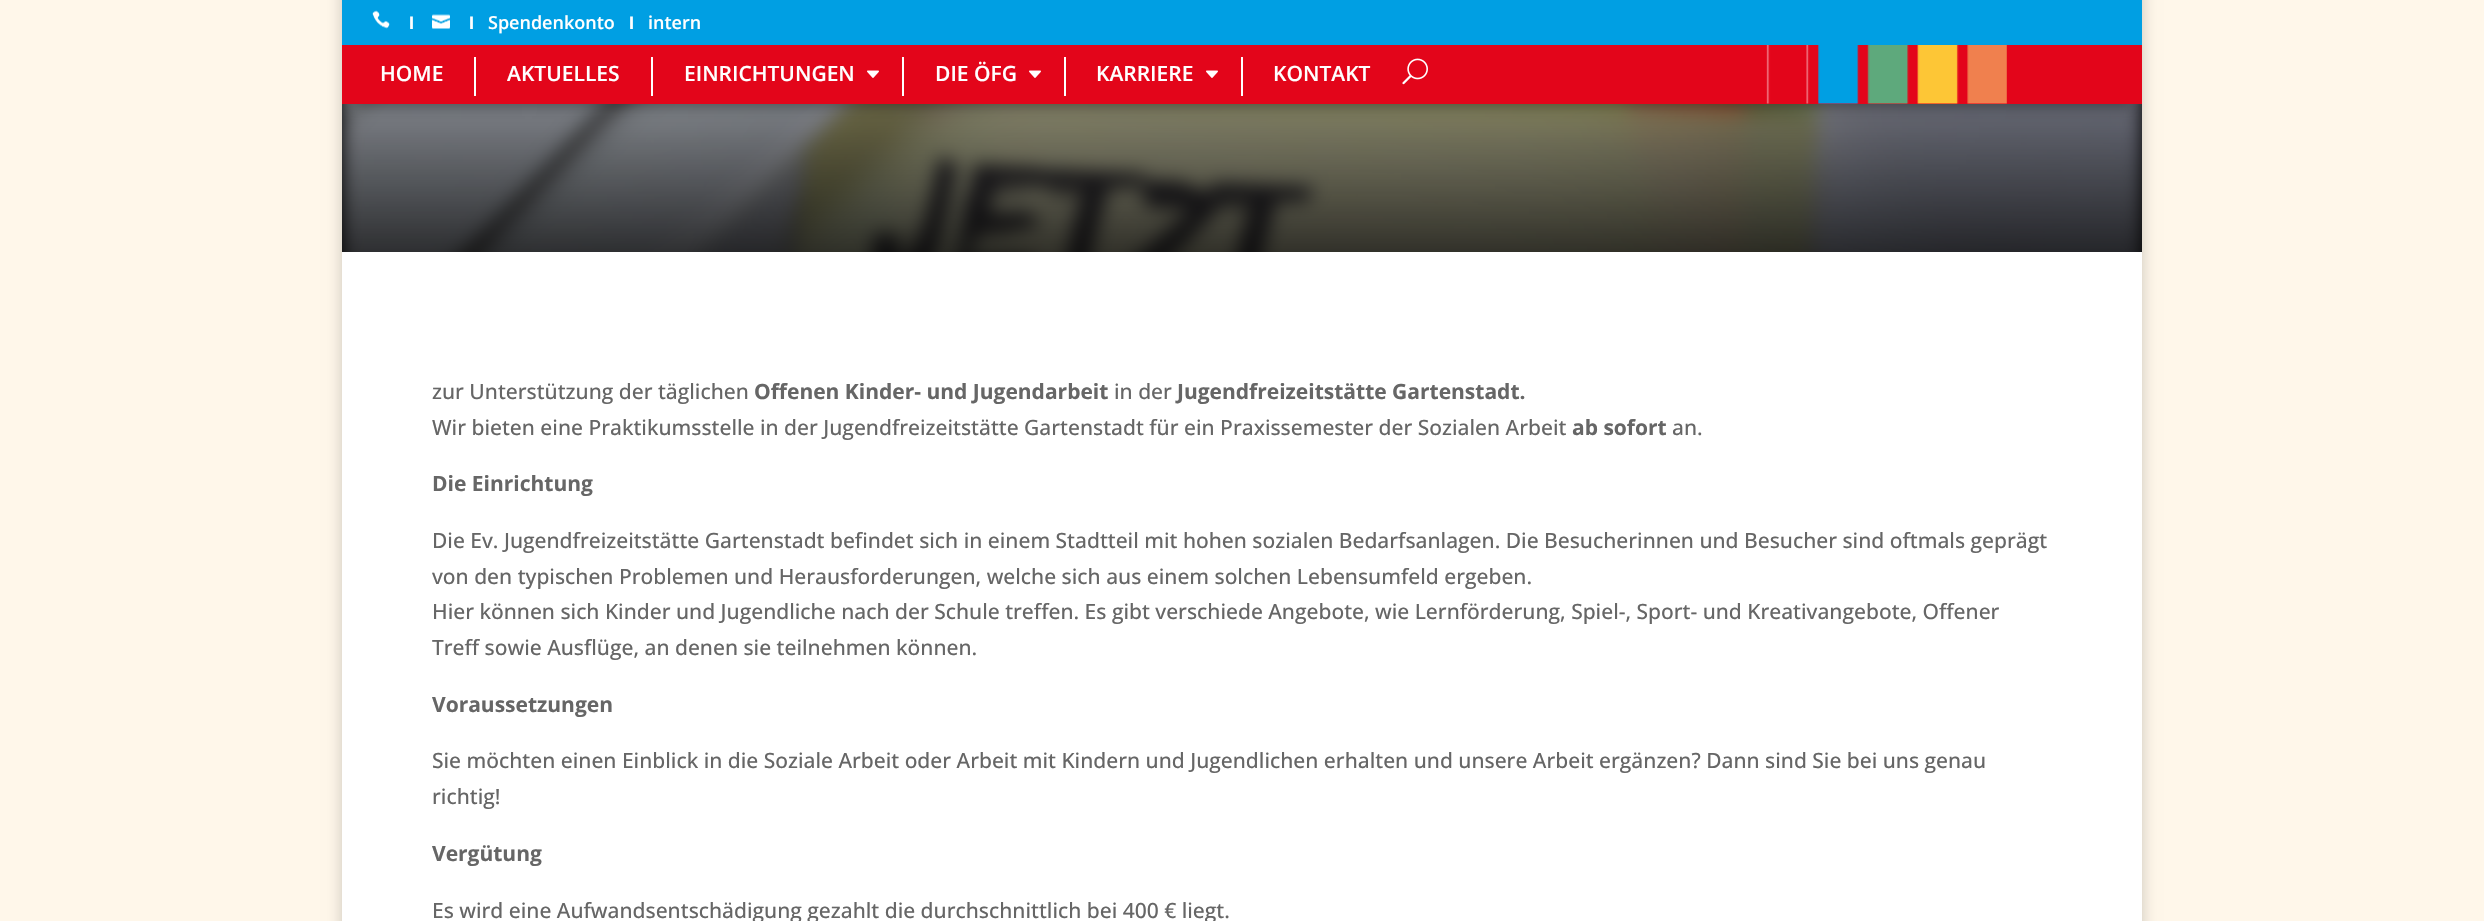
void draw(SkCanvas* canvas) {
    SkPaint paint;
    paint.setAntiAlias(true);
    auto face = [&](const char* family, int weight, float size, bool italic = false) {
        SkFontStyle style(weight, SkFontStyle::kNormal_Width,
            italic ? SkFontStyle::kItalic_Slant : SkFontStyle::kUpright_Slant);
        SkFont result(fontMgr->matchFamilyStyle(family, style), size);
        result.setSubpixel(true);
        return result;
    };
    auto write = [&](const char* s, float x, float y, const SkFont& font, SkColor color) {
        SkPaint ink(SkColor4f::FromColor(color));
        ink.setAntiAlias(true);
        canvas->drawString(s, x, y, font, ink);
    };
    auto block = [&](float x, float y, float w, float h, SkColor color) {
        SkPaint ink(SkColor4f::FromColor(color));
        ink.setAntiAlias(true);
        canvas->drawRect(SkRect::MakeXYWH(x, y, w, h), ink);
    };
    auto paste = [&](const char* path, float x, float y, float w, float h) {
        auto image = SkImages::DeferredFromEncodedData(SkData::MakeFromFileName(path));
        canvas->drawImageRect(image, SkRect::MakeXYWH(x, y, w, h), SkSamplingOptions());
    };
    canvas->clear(SkColorSetRGB(255, 247, 234));
    paint.setColor(SkColorSetARGB(51, 0, 0, 0));
    paint.setMaskFilter(SkMaskFilter::MakeBlur(kNormal_SkBlurStyle, 7.5f));
    canvas->drawRect(SkRect::MakeXYWH(342, -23, 1800, 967), paint);
    paint.setMaskFilter(nullptr);
    block(342, 0, 1800, 45, SkColorSetRGB(0, 159, 227));
    paste("pic1.png", 372, 10, 18, 19);
    auto kFont1 = face("Liberation Sans", 700, 18);
    write("Ι", 409, 29, kFont1, SK_ColorWHITE);
    paste("pic2.png", 432, 14, 18, 15);
    write("Ι", 469, 29, kFont1, SK_ColorWHITE);
    auto kFont2 = face("Open Sans", 600, 18);
    write("Spendenkonto", 488, 29, kFont2, SK_ColorWHITE);
    write("Ι", 629, 29, kFont1, SK_ColorWHITE);
    write("intern", 648, 29, kFont2, SK_ColorWHITE);
    block(342, 104, 1800, 148, SkColorSetRGB(2, 0, 0));
    paste("pic6.png", 342, 104, 1800, 148);
    {
        const SkColor colors[] = {SkColorSetARGB(0, 255, 255, 255), SkColorSetARGB(0, 0, 0, 0), SkColorSetARGB(130, 0, 0, 0), SkColorSetARGB(204, 0, 0, 0)};
        const float stops[] = {0, 0.01f, 0.78f, 1};
        const SkPoint ends[] = {{1242, -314}, {1242, 252}};
        paint.setShader(SkGradientShader::MakeLinear(ends, colors, stops, 4, SkTileMode::kClamp));
        paint.setAlpha(255);
    }
    canvas->drawRect(SkRect::MakeXYWH(342, 104, 1800, 148), paint);
    paint.setShader(nullptr);
    paint.setColor(SkColorSetARGB(77, 0, 0, 0));
    paint.setMaskFilter(SkMaskFilter::MakeBlur(kNormal_SkBlurStyle, 6));
    canvas->drawRect(SkRect::MakeXYWH(354, 72, 1776, 35), paint);
    paint.setMaskFilter(nullptr);
    block(342, 45, 1800, 59, SkColorSetRGB(227, 5, 26));
    block(474, 57, 2, 39, SK_ColorWHITE);
    auto kFont3 = face("Open Sans", 600, 21);
    write("HOME", 380, 81, kFont3, SK_ColorWHITE);
    block(651, 57, 2, 39, SK_ColorWHITE);
    write("AKTUELLES", 507, 81, kFont3, SK_ColorWHITE);
    block(902, 57, 2, 39, SK_ColorWHITE);
    write("EINRICHTUNGEN", 684, 81, kFont3, SK_ColorWHITE);
    paste("pic3.png", 867, 70, 12, 8);
    block(1064, 57, 2, 39, SK_ColorWHITE);
    write("DIE ÖFG", 935, 81, kFont3, SK_ColorWHITE);
    paste("pic3.png", 1029, 70, 12, 8);
    block(1241, 57, 2, 39, SK_ColorWHITE);
    write("KARRIERE", 1096, 81, kFont3, SK_ColorWHITE);
    paste("pic3.png", 1206, 70, 12, 8);
    write("KONTAKT", 1273, 81, kFont3, SK_ColorWHITE);
    paste("pic4.png", 1402, 58, 26, 27);
    paste("pic5.png", 1766, 45, 241, 59);
    block(342, 252, 1800, 669, SK_ColorWHITE);
    auto kFont4 = face("Open Sans", 500, 21);
    write("zur Unterstützung der täglichen", 432, 399, kFont4, SkColorSetRGB(102, 102, 102));
    auto kFont5 = face("Open Sans", 700, 21);
    write("Offenen Kinder- und Jugendarbeit", 754, 399, kFont5, SkColorSetRGB(102, 102, 102));
    write("in der", 1114, 399, kFont4, SkColorSetRGB(102, 102, 102));
    write("Jugendfreizeitstätte Gartenstadt.", 1177, 399, kFont5, SkColorSetRGB(102, 102, 102));
    write("Wir bieten eine Praktikumsstelle in der Jugendfreizeitstätte Gartenstadt für ein Praxissemester der Sozialen Arbeit", 432, 435, kFont4, SkColorSetRGB(102, 102, 102));
    write("ab sofort", 1572, 435, kFont5, SkColorSetRGB(102, 102, 102));
    write("an.", 1672, 435, kFont4, SkColorSetRGB(102, 102, 102));
    write("Die Einrichtung", 432, 491, kFont5, SkColorSetRGB(102, 102, 102));
    write("Die Ev. Jugendfreizeitstätte Gartenstadt befindet sich in einem Stadtteil mit hohen sozialen Bedarfsanlagen. Die Besucherinnen und Besucher sind oftmals geprägt", 432, 548, kFont4, SkColorSetRGB(102, 102, 102));
    write("von den typischen Problemen und Herausforderungen, welche sich aus einem solchen Lebensumfeld ergeben.", 432, 584, kFont4, SkColorSetRGB(102, 102, 102));
    write("Hier können sich Kinder und Jugendliche nach der Schule treffen. Es gibt verschiede Angebote, wie Lernförderung, Spiel-, Sport- und Kreativangebote, Offener", 432, 619, kFont4, SkColorSetRGB(102, 102, 102));
    write("Treff sowie Ausflüge, an denen sie teilnehmen können.", 432, 655, kFont4, SkColorSetRGB(102, 102, 102));
    write("Voraussetzungen", 432, 712, kFont5, SkColorSetRGB(102, 102, 102));
    write("Sie möchten einen Einblick in die Soziale Arbeit oder Arbeit mit Kindern und Jugendlichen erhalten und unsere Arbeit ergänzen? Dann sind Sie bei uns genau", 432, 768, kFont4, SkColorSetRGB(102, 102, 102));
    write("richtig!", 432, 804, kFont4, SkColorSetRGB(102, 102, 102));
    write("Vergütung", 432, 861, kFont5, SkColorSetRGB(102, 102, 102));
    write("Es wird eine Aufwandsentschädigung gezahlt die durchschnittlich bei 400 € liegt.", 432, 918, kFont4, SkColorSetRGB(102, 102, 102));
}
